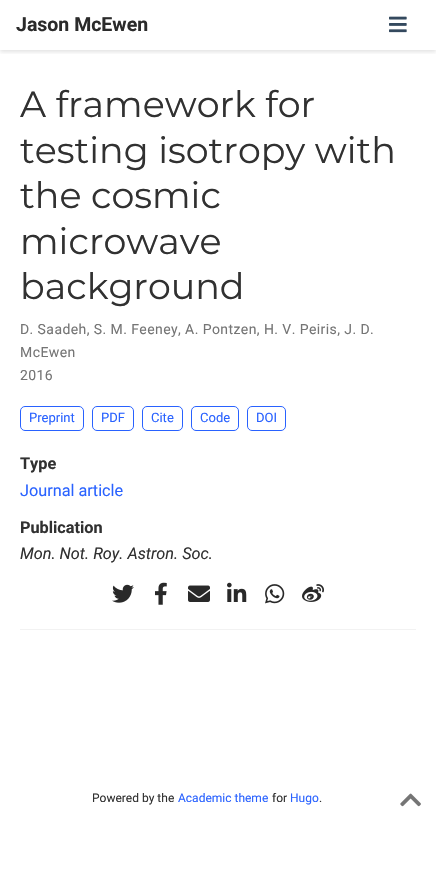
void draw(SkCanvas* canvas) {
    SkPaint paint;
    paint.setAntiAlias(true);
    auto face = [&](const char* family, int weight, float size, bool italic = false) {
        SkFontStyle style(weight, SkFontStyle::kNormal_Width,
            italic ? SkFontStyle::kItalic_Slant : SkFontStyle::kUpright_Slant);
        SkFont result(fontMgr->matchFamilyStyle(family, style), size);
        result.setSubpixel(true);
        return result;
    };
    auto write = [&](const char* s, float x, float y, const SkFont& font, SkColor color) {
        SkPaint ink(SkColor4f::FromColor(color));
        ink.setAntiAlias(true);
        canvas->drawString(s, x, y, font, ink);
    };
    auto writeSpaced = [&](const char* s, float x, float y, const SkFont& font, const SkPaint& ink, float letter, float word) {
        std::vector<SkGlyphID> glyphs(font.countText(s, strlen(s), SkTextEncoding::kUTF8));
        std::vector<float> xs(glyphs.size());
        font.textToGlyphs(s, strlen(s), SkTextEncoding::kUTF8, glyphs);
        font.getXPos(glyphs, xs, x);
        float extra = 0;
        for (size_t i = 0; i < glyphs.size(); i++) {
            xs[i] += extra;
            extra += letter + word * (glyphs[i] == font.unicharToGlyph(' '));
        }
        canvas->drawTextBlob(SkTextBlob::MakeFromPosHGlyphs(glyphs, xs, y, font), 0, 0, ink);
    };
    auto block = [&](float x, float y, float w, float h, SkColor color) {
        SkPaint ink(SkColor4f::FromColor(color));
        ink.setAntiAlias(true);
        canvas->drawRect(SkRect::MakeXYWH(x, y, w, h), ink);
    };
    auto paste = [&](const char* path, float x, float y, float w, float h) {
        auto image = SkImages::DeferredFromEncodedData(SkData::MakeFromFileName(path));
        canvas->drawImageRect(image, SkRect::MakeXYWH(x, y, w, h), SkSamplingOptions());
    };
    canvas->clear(SK_ColorWHITE);
    canvas->save();
    canvas->clipRect(SkRect::MakeXYWH(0, 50, 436, 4));
    paint.setColor(SkColorSetARGB(28, 0, 0, 0));
    paint.setMaskFilter(SkMaskFilter::MakeBlur(kNormal_SkBlurStyle, 2));
    canvas->drawRect(SkRect::MakeXYWH(0, 2, 436, 50), paint);
    paint.setMaskFilter(nullptr);
    canvas->restore();
    auto kFont1 = face("Roboto", 700, 19.5f);
    write("Jason McEwen", 16, 31, kFont1, SkColorSetRGB(43, 43, 43));
    paste("pic1.png", 389, 16, 18, 17);
    auto kFont2 = face("Montserrat", 400, 36.4f);
    write("A framework for", 20, 117, kFont2, SkColorSetRGB(49, 49, 49));
    write("testing isotropy with", 20, 163, kFont2, SkColorSetRGB(49, 49, 49));
    write("the cosmic", 20, 208, kFont2, SkColorSetRGB(49, 49, 49));
    write("microwave", 20, 254, kFont2, SkColorSetRGB(49, 49, 49));
    write("background", 20, 299, kFont2, SkColorSetRGB(49, 49, 49));
    auto kFont3 = face("Roboto", 400, 14);
    paint.setColor(SkColorSetRGB(117, 117, 117));
    writeSpaced("D. Saadeh, S. M. Feeney, A. Pontzen, H. V. Peiris, J. D.", 20, 334, kFont3, paint, 0.42f, 0);
    writeSpaced("McEwen", 20, 357, kFont3, paint, 0.42f, 0);
    writeSpaced("2016", 20, 380, kFont3, paint, 0.42f, 0);
    paint.setStyle(SkPaint::kStroke_Style);
    paint.setStrokeWidth(1);
    paint.setColor(SkColorSetRGB(41, 98, 255));
    canvas->drawRoundRect(SkRect::MakeXYWH(20.5f, 406.5f, 63, 24), 4.5f, 4.5f, paint);
    auto kFont4 = face("Roboto", 400, 13);
    write("Preprint", 29, 422, kFont4, SkColorSetRGB(41, 98, 255));
    canvas->drawRoundRect(SkRect::MakeXYWH(92.5f, 406.5f, 41, 24), 4.5f, 4.5f, paint);
    write("PDF", 101, 422, kFont4, SkColorSetRGB(41, 98, 255));
    canvas->drawRoundRect(SkRect::MakeXYWH(142.5f, 406.5f, 40, 24), 4.5f, 4.5f, paint);
    write("Cite", 151, 422, kFont4, SkColorSetRGB(41, 98, 255));
    canvas->drawRoundRect(SkRect::MakeXYWH(191.5f, 406.5f, 47, 24), 4.5f, 4.5f, paint);
    write("Code", 200, 422, kFont4, SkColorSetRGB(41, 98, 255));
    canvas->drawRoundRect(SkRect::MakeXYWH(247.5f, 406.5f, 38, 24), 4.5f, 4.5f, paint);
    write("DOI", 256, 422, kFont4, SkColorSetRGB(41, 98, 255));
    auto kFont5 = face("Roboto", 700, 16.25f);
    write("Type", 20, 469, kFont5, SkColorSetRGB(49, 49, 49));
    auto kFont6 = face("Roboto", 400, 16.25f);
    write("Journal article", 20, 496, kFont6, SkColorSetRGB(41, 98, 255));
    write("Publication", 20, 533, kFont5, SkColorSetRGB(49, 49, 49));
    auto kFont7 = face("Roboto", 400, 16.25f, true);
    write("Mon. Not. Roy. Astron. Soc.", 20, 559, kFont7, SkColorSetRGB(49, 49, 49));
    paste("pic2.png", 112, 584, 22, 19);
    paste("pic3.png", 155, 582, 12, 23);
    paste("pic4.png", 188, 585, 22, 17);
    paste("pic5.png", 227, 582, 20, 20);
    paste("pic6.png", 265, 584, 20, 20);
    paste("pic7.png", 302, 584, 22, 18);
    block(20, 629, 396, 1, SkColorSetRGB(242, 242, 242));
    auto kFont8 = face("Roboto", 400, 12);
    write("Powered by the", 92, 802, kFont8, SkColorSetRGB(49, 49, 49));
    write("Academic theme", 178, 802, kFont8, SkColorSetRGB(41, 98, 255));
    write("for", 272, 802, kFont8, SkColorSetRGB(49, 49, 49));
    write("Hugo", 290, 802, kFont8, SkColorSetRGB(41, 98, 255));
    write(".", 319, 802, kFont8, SkColorSetRGB(49, 49, 49));
    paste("pic8.png", 400, 793, 21, 14);
}
